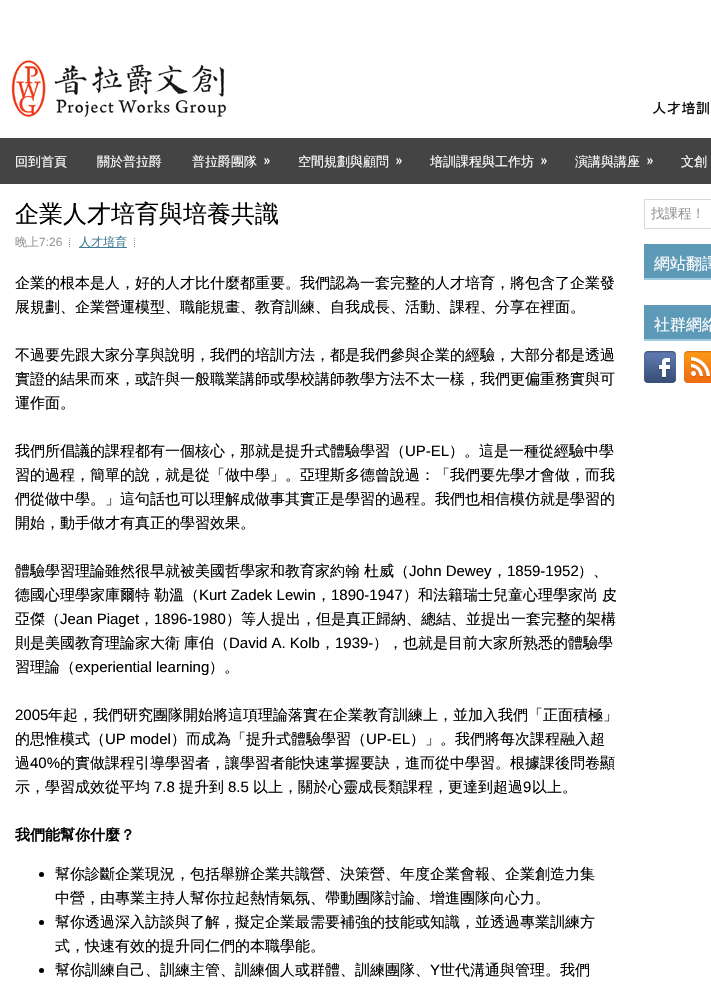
void draw(SkCanvas* canvas) {
    SkPaint paint;
    paint.setAntiAlias(true);
    auto face = [&](const char* family, int weight, float size, bool italic = false) {
        SkFontStyle style(weight, SkFontStyle::kNormal_Width,
            italic ? SkFontStyle::kItalic_Slant : SkFontStyle::kUpright_Slant);
        SkFont result(fontMgr->matchFamilyStyle(family, style), size);
        result.setSubpixel(true);
        return result;
    };
    auto write = [&](const char* s, float x, float y, const SkFont& font, SkColor color) {
        SkPaint ink(SkColor4f::FromColor(color));
        ink.setAntiAlias(true);
        canvas->drawString(s, x, y, font, ink);
    };
    auto block = [&](float x, float y, float w, float h, SkColor color) {
        SkPaint ink(SkColor4f::FromColor(color));
        ink.setAntiAlias(true);
        canvas->drawRect(SkRect::MakeXYWH(x, y, w, h), ink);
    };
    auto paste = [&](const char* path, float x, float y, float w, float h) {
        auto image = SkImages::DeferredFromEncodedData(SkData::MakeFromFileName(path));
        canvas->drawImageRect(image, SkRect::MakeXYWH(x, y, w, h), SkSamplingOptions());
    };
    canvas->clear(SK_ColorWHITE);
    paste("pic1.png", 11, 60, 215, 57);
    paste("pic2.png", 652, 101, 57, 14);
    block(0, 138, 711, 46, SkColorSetRGB(68, 68, 68));
    auto kFont1 = face("WenQuanYi Zen Hei", 500, 13);
    write("回到首頁", 15, 166, kFont1, SkColorSetRGB(254, 254, 254));
    write("關於普拉爵", 97, 166, kFont1, SkColorSetRGB(254, 254, 254));
    write("普拉爵團隊", 192, 166, kFont1, SkColorSetRGB(254, 254, 254));
    auto kFont2 = face("Oswald", 400, 13);
    write("»", 264, 165, kFont2, SkColorSetRGB(254, 254, 254));
    write("空間規劃與顧問", 298, 166, kFont1, SkColorSetRGB(254, 254, 254));
    write("»", 396, 165, kFont2, SkColorSetRGB(254, 254, 254));
    write("培訓課程與工作坊", 430, 166, kFont1, SkColorSetRGB(254, 254, 254));
    write("»", 541, 165, kFont2, SkColorSetRGB(254, 254, 254));
    write("演講與講座", 575, 166, kFont1, SkColorSetRGB(254, 254, 254));
    write("»", 647, 165, kFont2, SkColorSetRGB(254, 254, 254));
    write("文創", 681, 166, kFont1, SkColorSetRGB(254, 254, 254));
    auto kFont3 = face("WenQuanYi Zen Hei", 500, 24);
    write("企業人才培育與培養共識", 15, 222, kFont3, SK_ColorBLACK);
    auto kFont4 = face("WenQuanYi Zen Hei", 500, 12);
    write("晚上", 15, 246, kFont4, SkColorSetRGB(153, 153, 153));
    auto kFont5 = face("Liberation Sans", 400, 12);
    write("7:26", 39, 246, kFont5, SkColorSetRGB(153, 153, 153));
    paste("pic3.png", 69, 238, 1, 9);
    block(79, 247, 48, 1, SkColorSetRGB(65, 123, 150));
    write("人才培育", 79, 246, kFont4, SkColorSetRGB(65, 123, 150));
    paste("pic3.png", 134, 238, 1, 9);
    auto kFont6 = face("WenQuanYi Zen Hei", 500, 15);
    write("企業的根本是人，好的人才比什麼都重要。我們認為一套完整的人才培育，將包含了企業發", 15, 288, kFont6, SK_ColorBLACK);
    write("展規劃、企業營運模型、職能規畫、教育訓練、自我成長、活動、課程、分享在裡面。", 15, 312, kFont6, SK_ColorBLACK);
    write("不過要先跟大家分享與說明，我們的培訓方法，都是我們參與企業的經驗，大部分都是透過", 15, 360, kFont6, SK_ColorBLACK);
    write("實證的結果而來，或許與一般職業講師或學校講師教學方法不太一樣，我們更偏重務實與可", 15, 384, kFont6, SK_ColorBLACK);
    write("運作面。", 15, 408, kFont6, SK_ColorBLACK);
    write("我們所倡議的課程都有一個核心，那就是提升式體驗學習（", 15, 456, kFont6, SK_ColorBLACK);
    auto kFont7 = face("Liberation Sans", 400, 15);
    write("UP-EL", 405, 456, kFont7, SK_ColorBLACK);
    write("）。這是一種從經驗中學", 449, 456, kFont6, SK_ColorBLACK);
    write("習的過程，簡單的說，就是從「做中學」。亞理斯多德曾說過：「我們要先學才會做，而我", 15, 480, kFont6, SK_ColorBLACK);
    write("們從做中學。」這句話也可以理解成做事其實正是學習的過程。我們也相信模仿就是學習的", 15, 504, kFont6, SK_ColorBLACK);
    write("開始，動手做才有真正的學習效果。", 15, 528, kFont6, SK_ColorBLACK);
    write("體驗學習理論雖然很早就被美國哲學家和教育家約翰", 15, 576, kFont6, SK_ColorBLACK);
    write("杜威（", 364, 576, kFont6, SK_ColorBLACK);
    write("John Dewey", 409, 576, kFont7, SK_ColorBLACK);
    write("，", 492, 576, kFont6, SK_ColorBLACK);
    write("1859-1952", 507, 576, kFont7, SK_ColorBLACK);
    write("）、", 578, 576, kFont6, SK_ColorBLACK);
    write("德國心理學家庫爾特", 15, 600, kFont6, SK_ColorBLACK);
    write("勒溫（", 154, 600, kFont6, SK_ColorBLACK);
    write("Kurt Zadek Lewin", 199, 600, kFont7, SK_ColorBLACK);
    write("，", 316, 600, kFont6, SK_ColorBLACK);
    write("1890-1947", 331, 600, kFont7, SK_ColorBLACK);
    write("）和法籍瑞士兒童心理學家尚", 403, 600, kFont6, SK_ColorBLACK);
    write("皮", 602, 600, kFont6, SK_ColorBLACK);
    write("亞傑（", 15, 624, kFont6, SK_ColorBLACK);
    write("Jean Piaget", 60, 624, kFont7, SK_ColorBLACK);
    write("，", 139, 624, kFont6, SK_ColorBLACK);
    write("1896-1980", 154, 624, kFont7, SK_ColorBLACK);
    write("）等人提出，但是真正歸納、總結、並提出一套完整的架構", 226, 624, kFont6, SK_ColorBLACK);
    write("則是美國教育理論家大衛", 15, 648, kFont6, SK_ColorBLACK);
    write("庫伯（", 184, 648, kFont6, SK_ColorBLACK);
    write("David A. Kolb", 229, 648, kFont7, SK_ColorBLACK);
    write("，", 320, 648, kFont6, SK_ColorBLACK);
    write("1939-", 335, 648, kFont7, SK_ColorBLACK);
    write("），也就是目前大家所熟悉的體驗學", 373, 648, kFont6, SK_ColorBLACK);
    write("習理論（", 15, 672, kFont6, SK_ColorBLACK);
    write("experiential learning", 75, 672, kFont7, SK_ColorBLACK);
    write("）。", 209, 672, kFont6, SK_ColorBLACK);
    write("2005", 15, 720, kFont7, SK_ColorBLACK);
    write("年起，我們研究團隊開始將這項理論落實在企業教育訓練上，並加入我們「正面積極」", 48, 720, kFont6, SK_ColorBLACK);
    write("的思惟模式（", 15, 744, kFont6, SK_ColorBLACK);
    write("UP model", 105, 744, kFont7, SK_ColorBLACK);
    write("）而成為「提升式體驗學習（", 171, 744, kFont6, SK_ColorBLACK);
    write("UP-EL", 366, 744, kFont7, SK_ColorBLACK);
    write("）」。我們將每次課程融入超", 410, 744, kFont6, SK_ColorBLACK);
    write("過", 15, 768, kFont6, SK_ColorBLACK);
    write("40%", 30, 768, kFont7, SK_ColorBLACK);
    write("的實做課程引導學習者，讓學習者能快速掌握要訣，進而從中學習。根據課後問卷顯", 60, 768, kFont6, SK_ColorBLACK);
    write("示，學習成效從平均", 15, 792, kFont6, SK_ColorBLACK);
    write("7.8", 154, 792, kFont7, SK_ColorBLACK);
    write("提升到", 179, 792, kFont6, SK_ColorBLACK);
    write("8.5", 228, 792, kFont7, SK_ColorBLACK);
    write("以上，關於心靈成長類課程，更達到超過", 253, 792, kFont6, SK_ColorBLACK);
    write("9", 523, 792, kFont7, SK_ColorBLACK);
    write("以上。", 532, 792, kFont6, SK_ColorBLACK);
    auto kFont8 = face("WenQuanYi Zen Hei", 700, 15);
    write("我們能幫你什麼？", 15, 840, kFont8, SK_ColorBLACK);
    paint.setColor(SK_ColorBLACK);
    canvas->drawCircle(41.5f, 874.5f, 2.5f, paint);
    write("幫你診斷企業現況，包括舉辦企業共識營、決策營、年度企業會報、企業創造力集", 55, 879, kFont6, SK_ColorBLACK);
    write("中營，由專業主持人幫你拉起熱情氣氛、帶動團隊討論、增進團隊向心力。", 55, 903, kFont6, SK_ColorBLACK);
    canvas->drawCircle(41.5f, 922.5f, 2.5f, paint);
    write("幫你透過深入訪談與了解，擬定企業最需要補強的技能或知識，並透過專業訓練方", 55, 927, kFont6, SK_ColorBLACK);
    write("式，快速有效的提升同仁們的本職學能。", 55, 951, kFont6, SK_ColorBLACK);
    canvas->drawCircle(41.5f, 970.5f, 2.5f, paint);
    write("幫你訓練自己、訓練主管、訓練個人或群體、訓練團隊、", 55, 975, kFont6, SK_ColorBLACK);
    write("Y", 430, 975, kFont7, SK_ColorBLACK);
    write("世代溝通與管理。我們", 440, 975, kFont6, SK_ColorBLACK);
    paint.setStyle(SkPaint::kStroke_Style);
    paint.setStrokeWidth(1);
    paint.setColor(SkColorSetRGB(216, 216, 216));
    canvas->drawRect(SkRect::MakeXYWH(644.5f, 199.5f, 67, 29), paint);
    auto kFont9 = face("WenQuanYi Zen Hei", 500, 13.5f);
    write("找課程！", 651, 218, kFont9, SkColorSetRGB(153, 153, 153));
    paste("pic4.png", 644, 244, 67, 36);
    auto kFont10 = face("WenQuanYi Zen Hei", 500, 16);
    write("網站翻譯", 654, 269, kFont10, SkColorSetRGB(254, 254, 254));
    paste("pic4.png", 644, 305, 67, 36);
    write("社群網絡", 654, 330, kFont10, SkColorSetRGB(254, 254, 254));
    paste("pic5.png", 644, 351, 32, 32);
    paste("pic6.png", 684, 351, 27, 32);
}
